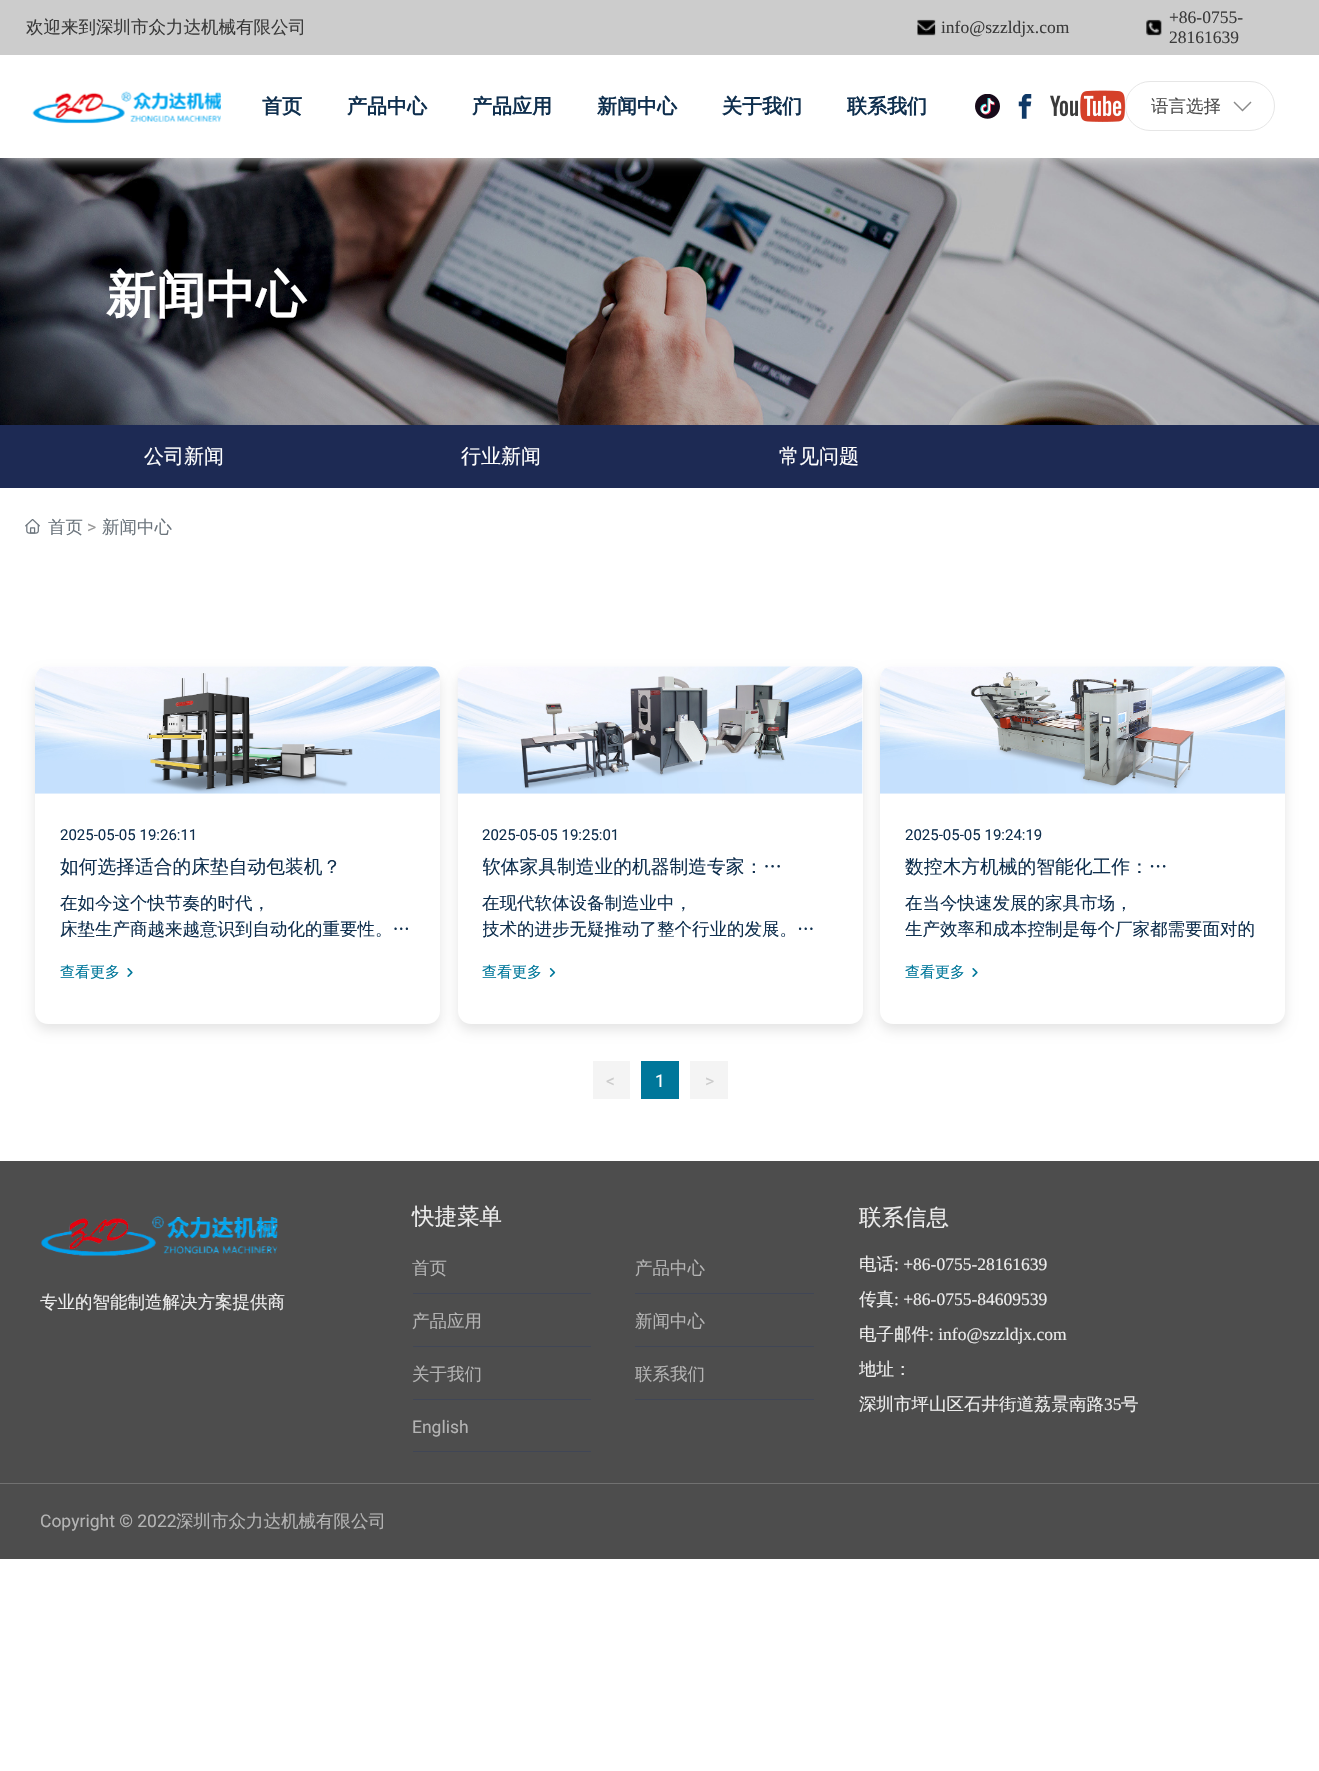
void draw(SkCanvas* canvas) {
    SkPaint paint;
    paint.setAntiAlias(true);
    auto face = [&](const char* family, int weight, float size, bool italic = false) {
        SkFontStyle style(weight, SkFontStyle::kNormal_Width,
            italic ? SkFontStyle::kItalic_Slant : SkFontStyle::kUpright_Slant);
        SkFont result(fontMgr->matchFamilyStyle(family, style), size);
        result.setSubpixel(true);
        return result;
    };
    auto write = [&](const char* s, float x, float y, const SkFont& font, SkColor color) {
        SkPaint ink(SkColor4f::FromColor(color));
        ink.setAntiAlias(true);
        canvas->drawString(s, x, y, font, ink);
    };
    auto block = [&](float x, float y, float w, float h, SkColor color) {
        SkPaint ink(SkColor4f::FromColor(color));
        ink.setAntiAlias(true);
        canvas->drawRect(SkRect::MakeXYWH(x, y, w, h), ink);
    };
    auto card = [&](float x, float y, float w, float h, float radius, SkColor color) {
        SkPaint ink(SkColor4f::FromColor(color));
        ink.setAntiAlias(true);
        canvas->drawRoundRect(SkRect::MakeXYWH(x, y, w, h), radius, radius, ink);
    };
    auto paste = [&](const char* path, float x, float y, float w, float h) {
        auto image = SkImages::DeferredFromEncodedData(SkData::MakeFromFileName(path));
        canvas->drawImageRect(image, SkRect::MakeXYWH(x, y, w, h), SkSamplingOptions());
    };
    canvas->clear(SK_ColorWHITE);
    paste("pic7.png", 0, 158, 1319, 267);
    paint.setColor(SkColorSetRGB(217, 217, 217));
    paint.setMaskFilter(SkMaskFilter::MakeBlur(kNormal_SkBlurStyle, 6));
    canvas->drawRect(SkRect::MakeXYWH(6, 0, 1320, 158), paint);
    paint.setMaskFilter(nullptr);
    block(0, 55, 1319, 103, SK_ColorWHITE);
    block(0, 0, 1319, 55, SkColorSetRGB(204, 204, 204));
    auto kFont1 = face("WenQuanYi Zen Hei", 500, 17.5f);
    write("欢迎来到深圳市众力达机械有限公司", 26, 33, kFont1, SkColorSetRGB(58, 58, 58));
    paste("pic1.png", 917, 19, 19, 17);
    auto kFont2 = face("Liberation Serif", 400, 17.5f);
    write("info@szzldjx.com", 941, 33, kFont2, SkColorSetRGB(58, 58, 58));
    paste("pic2.png", 1146, 19, 16, 17);
    write("+86-0755-", 1169, 23, kFont2, SkColorSetRGB(58, 58, 58));
    write("28161639", 1169, 43, kFont2, SkColorSetRGB(58, 58, 58));
    paste("pic3.png", 32, 91, 189, 33);
    auto kFont3 = face("WenQuanYi Zen Hei", 700, 20);
    write("首页", 262, 113, kFont3, SkColorSetRGB(15, 47, 78));
    write("产品中心", 347, 113, kFont3, SkColorSetRGB(15, 47, 78));
    write("产品应用", 472, 113, kFont3, SkColorSetRGB(15, 47, 78));
    write("新闻中心", 597, 113, kFont3, SkColorSetRGB(15, 47, 78));
    write("关于我们", 722, 113, kFont3, SkColorSetRGB(15, 47, 78));
    write("联系我们", 847, 113, kFont3, SkColorSetRGB(15, 47, 78));
    paste("pic4.png", 975, 94, 25, 25);
    paste("pic5.png", 1018, 94, 14, 25);
    paste("pic6.png", 1050, 90, 75, 32);
    paint.setStyle(SkPaint::kStroke_Style);
    paint.setStrokeWidth(1);
    paint.setColor(SkColorSetRGB(230, 230, 230));
    canvas->drawRoundRect(SkRect::MakeXYWH(1125.5f, 81.5f, 149, 49), 24.5f, 24.5f, paint);
    write("语言选择", 1151, 112, kFont1, SkColorSetRGB(77, 77, 77));
    paint.setStyle(SkPaint::kFill_Style);
    paint.setColor(SkColorSetRGB(138, 138, 138));
    canvas->drawPath(SkPathBuilder().moveTo(1234.5f, 101.5f).lineTo(1233.5f, 102.5f).lineTo(1242.5f, 111.5f).lineTo(1251.5f, 102.5f).lineTo(1250.5f, 101.5f).lineTo(1242.5f, 109.5f).close().detach(), paint);
    auto kFont4 = face("WenQuanYi Zen Hei", 700, 50);
    write("新闻中心", 106, 312, kFont4, SK_ColorWHITE);
    block(0, 425, 1319, 63, SkColorSetRGB(29, 42, 84));
    auto kFont5 = face("WenQuanYi Zen Hei", 500, 20);
    write("公司新闻", 144, 463, kFont5, SK_ColorWHITE);
    write("行业新闻", 461, 463, kFont5, SK_ColorWHITE);
    write("常见问题", 779, 463, kFont5, SK_ColorWHITE);
    paste("pic8.png", 25, 519, 15, 15);
    write("首页", 48, 533, kFont1, SkColorSetRGB(108, 117, 125));
    auto kFont6 = face("Roboto", 400, 17.5f);
    write(">", 87, 533, kFont6, SkColorSetRGB(153, 153, 153));
    write("新闻中心", 102, 533, kFont1, SkColorSetRGB(108, 117, 125));
    paint.setColor(SkColorSetARGB(26, 0, 0, 0));
    paint.setMaskFilter(SkMaskFilter::MakeBlur(kNormal_SkBlurStyle, 6));
    canvas->drawRoundRect(SkRect::MakeXYWH(35, 673, 405, 357), 13, 13, paint);
    paint.setMaskFilter(nullptr);
    card(35, 666, 405, 358, 13, SK_ColorWHITE);
    paste("pic9.png", 35, 666, 405, 128);
    auto kFont7 = face("Roboto", 400, 15);
    write("2025-05-05 19:26:11", 60, 840, kFont7, SkColorSetRGB(15, 47, 78));
    auto kFont8 = face("WenQuanYi Zen Hei", 500, 18.75f);
    write("如何选择适合的床垫自动包装机？", 60, 873, kFont8, SkColorSetRGB(15, 47, 78));
    write("在如今这个快节奏的时代，", 60, 909, kFont1, SkColorSetRGB(15, 47, 78));
    write("床垫生产商越来越意识到自动化的重要性。…", 60, 935, kFont1, SkColorSetRGB(15, 47, 78));
    auto kFont9 = face("WenQuanYi Zen Hei", 500, 15);
    write("查看更多", 60, 977, kFont9, SkColorSetRGB(0, 119, 154));
    paste("pic10.png", 127, 968, 6, 9);
    paint.setMaskFilter(SkMaskFilter::MakeBlur(kNormal_SkBlurStyle, 6));
    canvas->drawRoundRect(SkRect::MakeXYWH(458, 673, 405, 357), 13, 13, paint);
    paint.setMaskFilter(nullptr);
    card(458, 666, 405, 358, 13, SK_ColorWHITE);
    paste("pic11.png", 457, 666, 406, 128);
    write("2025-05-05 19:25:01", 482, 840, kFont7, SkColorSetRGB(15, 47, 78));
    canvas->save();
    canvas->clipRect(SkRect::MakeXYWH(483, 856, 355, 24));
    write("软体家具制造业的机器制造专家：…", 482, 873, kFont8, SkColorSetRGB(15, 47, 78));
    canvas->restore();
    write("在现代软体设备制造业中，", 482, 909, kFont1, SkColorSetRGB(15, 47, 78));
    canvas->save();
    canvas->clipRect(SkRect::MakeXYWH(483, 890, 355, 53));
    write("技术的进步无疑推动了整个行业的发展。…", 482, 935, kFont1, SkColorSetRGB(15, 47, 78));
    canvas->restore();
    write("查看更多", 482, 977, kFont9, SkColorSetRGB(0, 119, 154));
    paste("pic12.png", 549, 968, 7, 9);
    paint.setMaskFilter(SkMaskFilter::MakeBlur(kNormal_SkBlurStyle, 6));
    canvas->drawRoundRect(SkRect::MakeXYWH(880, 673, 405, 357), 13, 13, paint);
    paint.setMaskFilter(nullptr);
    card(880, 666, 405, 358, 13, SK_ColorWHITE);
    paste("pic13.png", 880, 666, 405, 128);
    write("2025-05-05 19:24:19", 905, 840, kFont7, SkColorSetRGB(15, 47, 78));
    write("数控木方机械的智能化工作：…", 905, 873, kFont8, SkColorSetRGB(15, 47, 78));
    write("在当今快速发展的家具市场，", 905, 909, kFont1, SkColorSetRGB(15, 47, 78));
    write("生产效率和成本控制是每个厂家都需要面对的", 905, 935, kFont1, SkColorSetRGB(15, 47, 78));
    write("查看更多", 905, 977, kFont9, SkColorSetRGB(0, 119, 154));
    paste("pic10.png", 972, 968, 6, 9);
    block(593, 1061, 37, 38, SkColorSetRGB(244, 244, 244));
    write("<", 606, 1087, kFont6, SkColorSetRGB(204, 204, 204));
    block(641, 1061, 38, 38, SkColorSetRGB(0, 119, 154));
    write("1", 655, 1087, kFont6, SK_ColorWHITE);
    block(690, 1061, 38, 38, SkColorSetRGB(244, 244, 244));
    write(">", 705, 1087, kFont6, SkColorSetRGB(204, 204, 204));
    block(0, 1161, 1319, 398, SkColorSetRGB(77, 77, 77));
    paste("pic14.png", 40, 1216, 238, 40);
    write("专业的智能制造解决方案提供商", 40, 1308, kFont1, SkColorSetRGB(237, 237, 237));
    auto kFont10 = face("WenQuanYi Zen Hei", 500, 22.5f);
    write("快捷菜单", 412, 1224, kFont10, SkColorSetRGB(237, 237, 237));
    write("首页", 412, 1274, kFont1, SkColorSetRGB(180, 180, 180));
    block(413, 1293, 178, 1, SkColorSetRGB(64, 70, 86));
    write("产品中心", 635, 1274, kFont1, SkColorSetRGB(180, 180, 180));
    block(635, 1293, 179, 1, SkColorSetRGB(64, 70, 86));
    write("产品应用", 412, 1327, kFont1, SkColorSetRGB(180, 180, 180));
    block(413, 1346, 178, 1, SkColorSetRGB(64, 70, 86));
    write("新闻中心", 635, 1327, kFont1, SkColorSetRGB(180, 180, 180));
    block(635, 1346, 179, 1, SkColorSetRGB(64, 70, 86));
    write("关于我们", 412, 1380, kFont1, SkColorSetRGB(180, 180, 180));
    block(413, 1399, 178, 1, SkColorSetRGB(64, 70, 86));
    write("联系我们", 635, 1380, kFont1, SkColorSetRGB(180, 180, 180));
    block(635, 1399, 179, 1, SkColorSetRGB(64, 70, 86));
    write("English", 412, 1433, kFont6, SkColorSetRGB(180, 180, 180));
    block(413, 1451, 178, 1, SkColorSetRGB(64, 70, 86));
    write("联系信息", 859, 1225, kFont10, SkColorSetRGB(237, 237, 237));
    write("电话", 859, 1270, kFont1, SkColorSetRGB(237, 237, 237));
    write(": +86-0755-28161639", 894, 1270, kFont2, SkColorSetRGB(237, 237, 237));
    write("传真", 859, 1305, kFont1, SkColorSetRGB(237, 237, 237));
    write(": +86-0755-84609539", 894, 1305, kFont2, SkColorSetRGB(237, 237, 237));
    write("电子邮件", 859, 1340, kFont1, SkColorSetRGB(237, 237, 237));
    write(": info@szzldjx.com", 929, 1340, kFont2, SkColorSetRGB(237, 237, 237));
    write("地址：", 859, 1375, kFont1, SkColorSetRGB(237, 237, 237));
    write("深圳市坪山区石井街道荔景南路", 859, 1410, kFont1, SkColorSetRGB(237, 237, 237));
    write("35", 1104, 1410, kFont2, SkColorSetRGB(237, 237, 237));
    write("号", 1121, 1410, kFont1, SkColorSetRGB(237, 237, 237));
    block(0, 1483, 1319, 1, SkColorSetRGB(113, 113, 113));
    write("Copyright © 2022", 40, 1527, kFont6, SkColorSetRGB(180, 180, 180));
    write("深圳市众力达机械有限公司", 176, 1527, kFont1, SkColorSetRGB(180, 180, 180));
}
